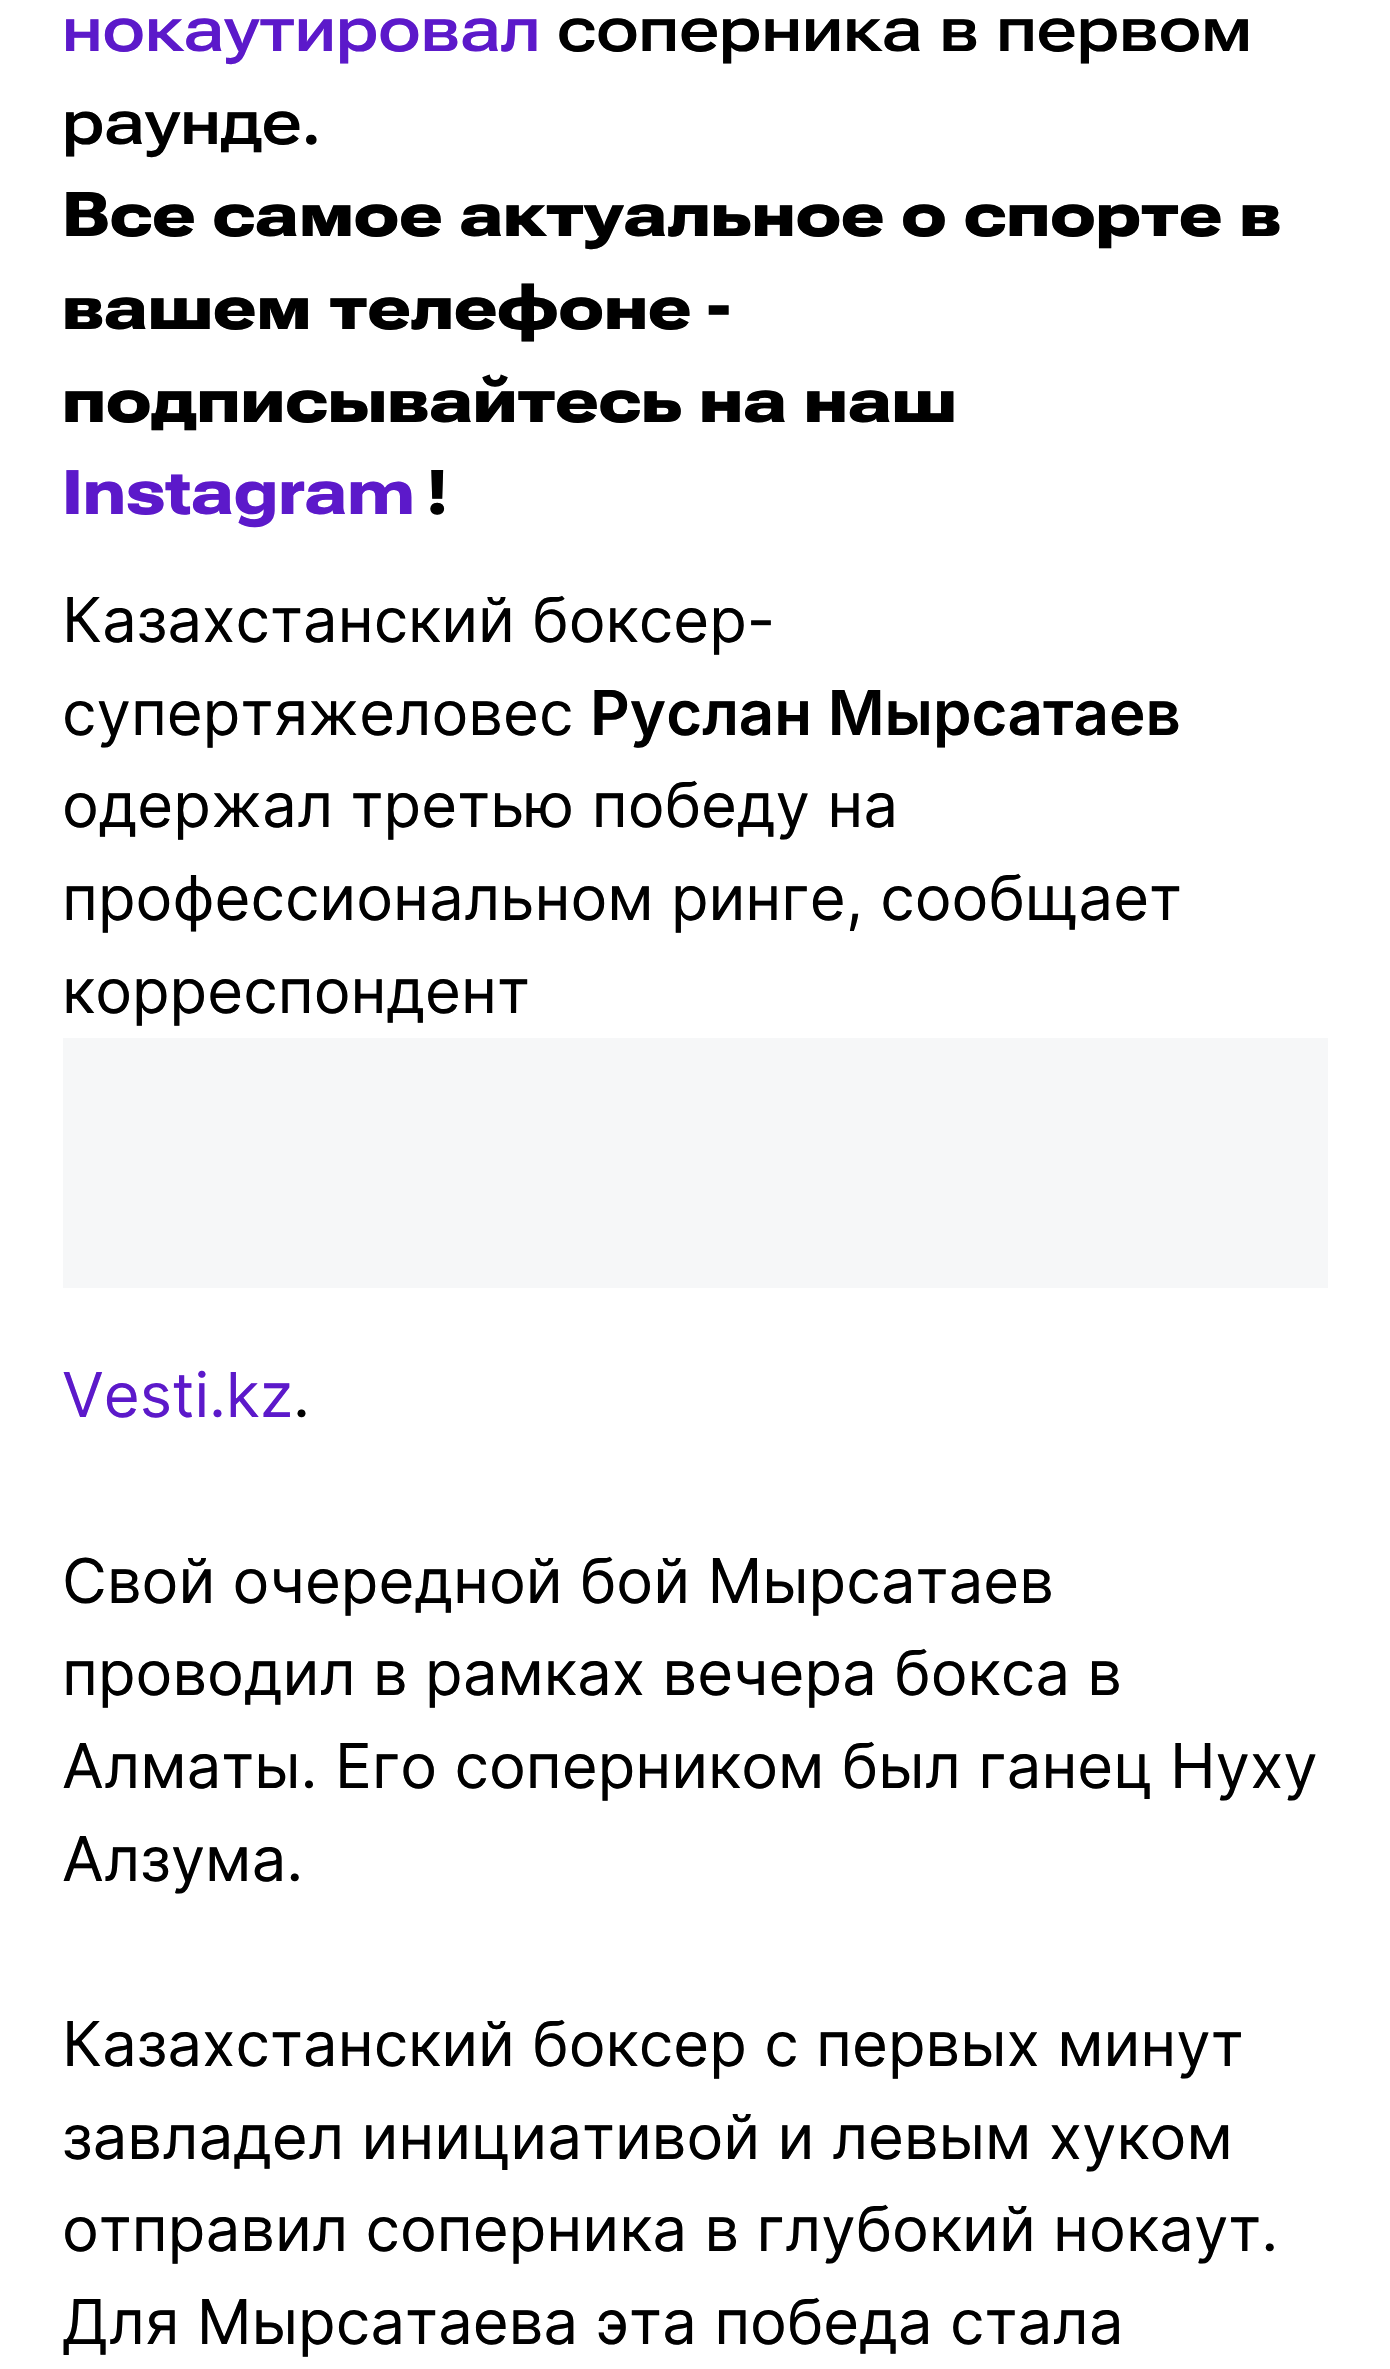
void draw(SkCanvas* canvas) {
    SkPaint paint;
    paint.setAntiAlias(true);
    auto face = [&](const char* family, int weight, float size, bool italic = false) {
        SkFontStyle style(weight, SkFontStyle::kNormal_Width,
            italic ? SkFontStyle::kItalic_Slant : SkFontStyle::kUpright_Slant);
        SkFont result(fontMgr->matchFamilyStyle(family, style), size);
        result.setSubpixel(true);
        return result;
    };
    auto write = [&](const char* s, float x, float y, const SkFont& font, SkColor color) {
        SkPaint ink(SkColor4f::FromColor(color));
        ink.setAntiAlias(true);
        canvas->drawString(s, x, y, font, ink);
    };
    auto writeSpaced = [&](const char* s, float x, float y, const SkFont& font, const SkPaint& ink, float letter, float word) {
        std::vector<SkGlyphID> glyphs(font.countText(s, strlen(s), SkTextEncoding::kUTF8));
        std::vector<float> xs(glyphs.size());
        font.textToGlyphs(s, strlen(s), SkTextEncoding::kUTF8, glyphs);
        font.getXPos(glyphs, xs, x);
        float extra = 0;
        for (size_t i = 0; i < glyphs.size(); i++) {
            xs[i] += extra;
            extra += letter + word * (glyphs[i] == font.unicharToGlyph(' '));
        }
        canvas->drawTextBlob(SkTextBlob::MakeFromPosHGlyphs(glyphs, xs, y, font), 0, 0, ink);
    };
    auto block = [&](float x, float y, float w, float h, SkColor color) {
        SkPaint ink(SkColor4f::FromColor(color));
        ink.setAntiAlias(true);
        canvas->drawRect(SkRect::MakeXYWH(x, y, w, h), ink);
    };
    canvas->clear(SK_ColorWHITE);
    auto kFont1 = face("Roboto Flex", 600, 61.75f);
    write("нокаутировал", 62, 51, kFont1, SkColorSetRGB(92, 25, 202));
    paint.setColor(SK_ColorBLACK);
    writeSpaced("соперника в первом", 557, 51, kFont1, paint, 0, 2);
    write("раунде.", 62, 144, kFont1, SK_ColorBLACK);
    auto kFont2 = face("Roboto Flex", 900, 61.75f);
    write("Все самое актуальное о спорте в", 62, 236, kFont2, SK_ColorBLACK);
    writeSpaced("вашем телефоне", 62, 329, kFont2, paint, 0, 1);
    auto kFont3 = face("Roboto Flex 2", 900, 61.75f);
    write("-", 708, 329, kFont3, SK_ColorBLACK);
    write("подписывайтесь на наш", 62, 422, kFont2, SK_ColorBLACK);
    write("Instagram", 62, 514, kFont3, SkColorSetRGB(92, 25, 202));
    write("!", 426, 514, kFont3, SK_ColorBLACK);
    auto kFont4 = face("Inter", 400, 61.75f);
    write("Казахстанский боксер-", 62, 642, kFont4, SK_ColorBLACK);
    write("супертяжеловес", 62, 735, kFont4, SK_ColorBLACK);
    auto kFont5 = face("Inter", 600, 61.75f);
    write("Руслан Мырсатаев", 590, 735, kFont5, SK_ColorBLACK);
    write("одержал третью победу на", 62, 827, kFont4, SK_ColorBLACK);
    write("профессиональном ринге, сообщает", 62, 920, kFont4, SK_ColorBLACK);
    write("корреспондент", 62, 1013, kFont4, SK_ColorBLACK);
    block(63, 1038, 1265, 250, SkColorSetRGB(246, 247, 248));
    write("Vesti.kz", 62, 1417, kFont4, SkColorSetRGB(92, 25, 202));
    write(".", 293, 1417, kFont4, SK_ColorBLACK);
    write("Свой очередной бой Мырсатаев", 62, 1603, kFont4, SK_ColorBLACK);
    write("проводил в рамках вечера бокса в", 62, 1695, kFont4, SK_ColorBLACK);
    write("Алматы. Его соперником был ганец Нуху", 62, 1788, kFont4, SK_ColorBLACK);
    write("Алзума.", 62, 1881, kFont4, SK_ColorBLACK);
    write("Казахстанский боксер с первых минут", 62, 2066, kFont4, SK_ColorBLACK);
    write("завладел инициативой и левым хуком", 62, 2159, kFont4, SK_ColorBLACK);
    write("отправил соперника в глубокий нокаут.", 62, 2251, kFont4, SK_ColorBLACK);
    write("Для Мырсатаева эта победа стала", 62, 2344, kFont4, SK_ColorBLACK);
}
